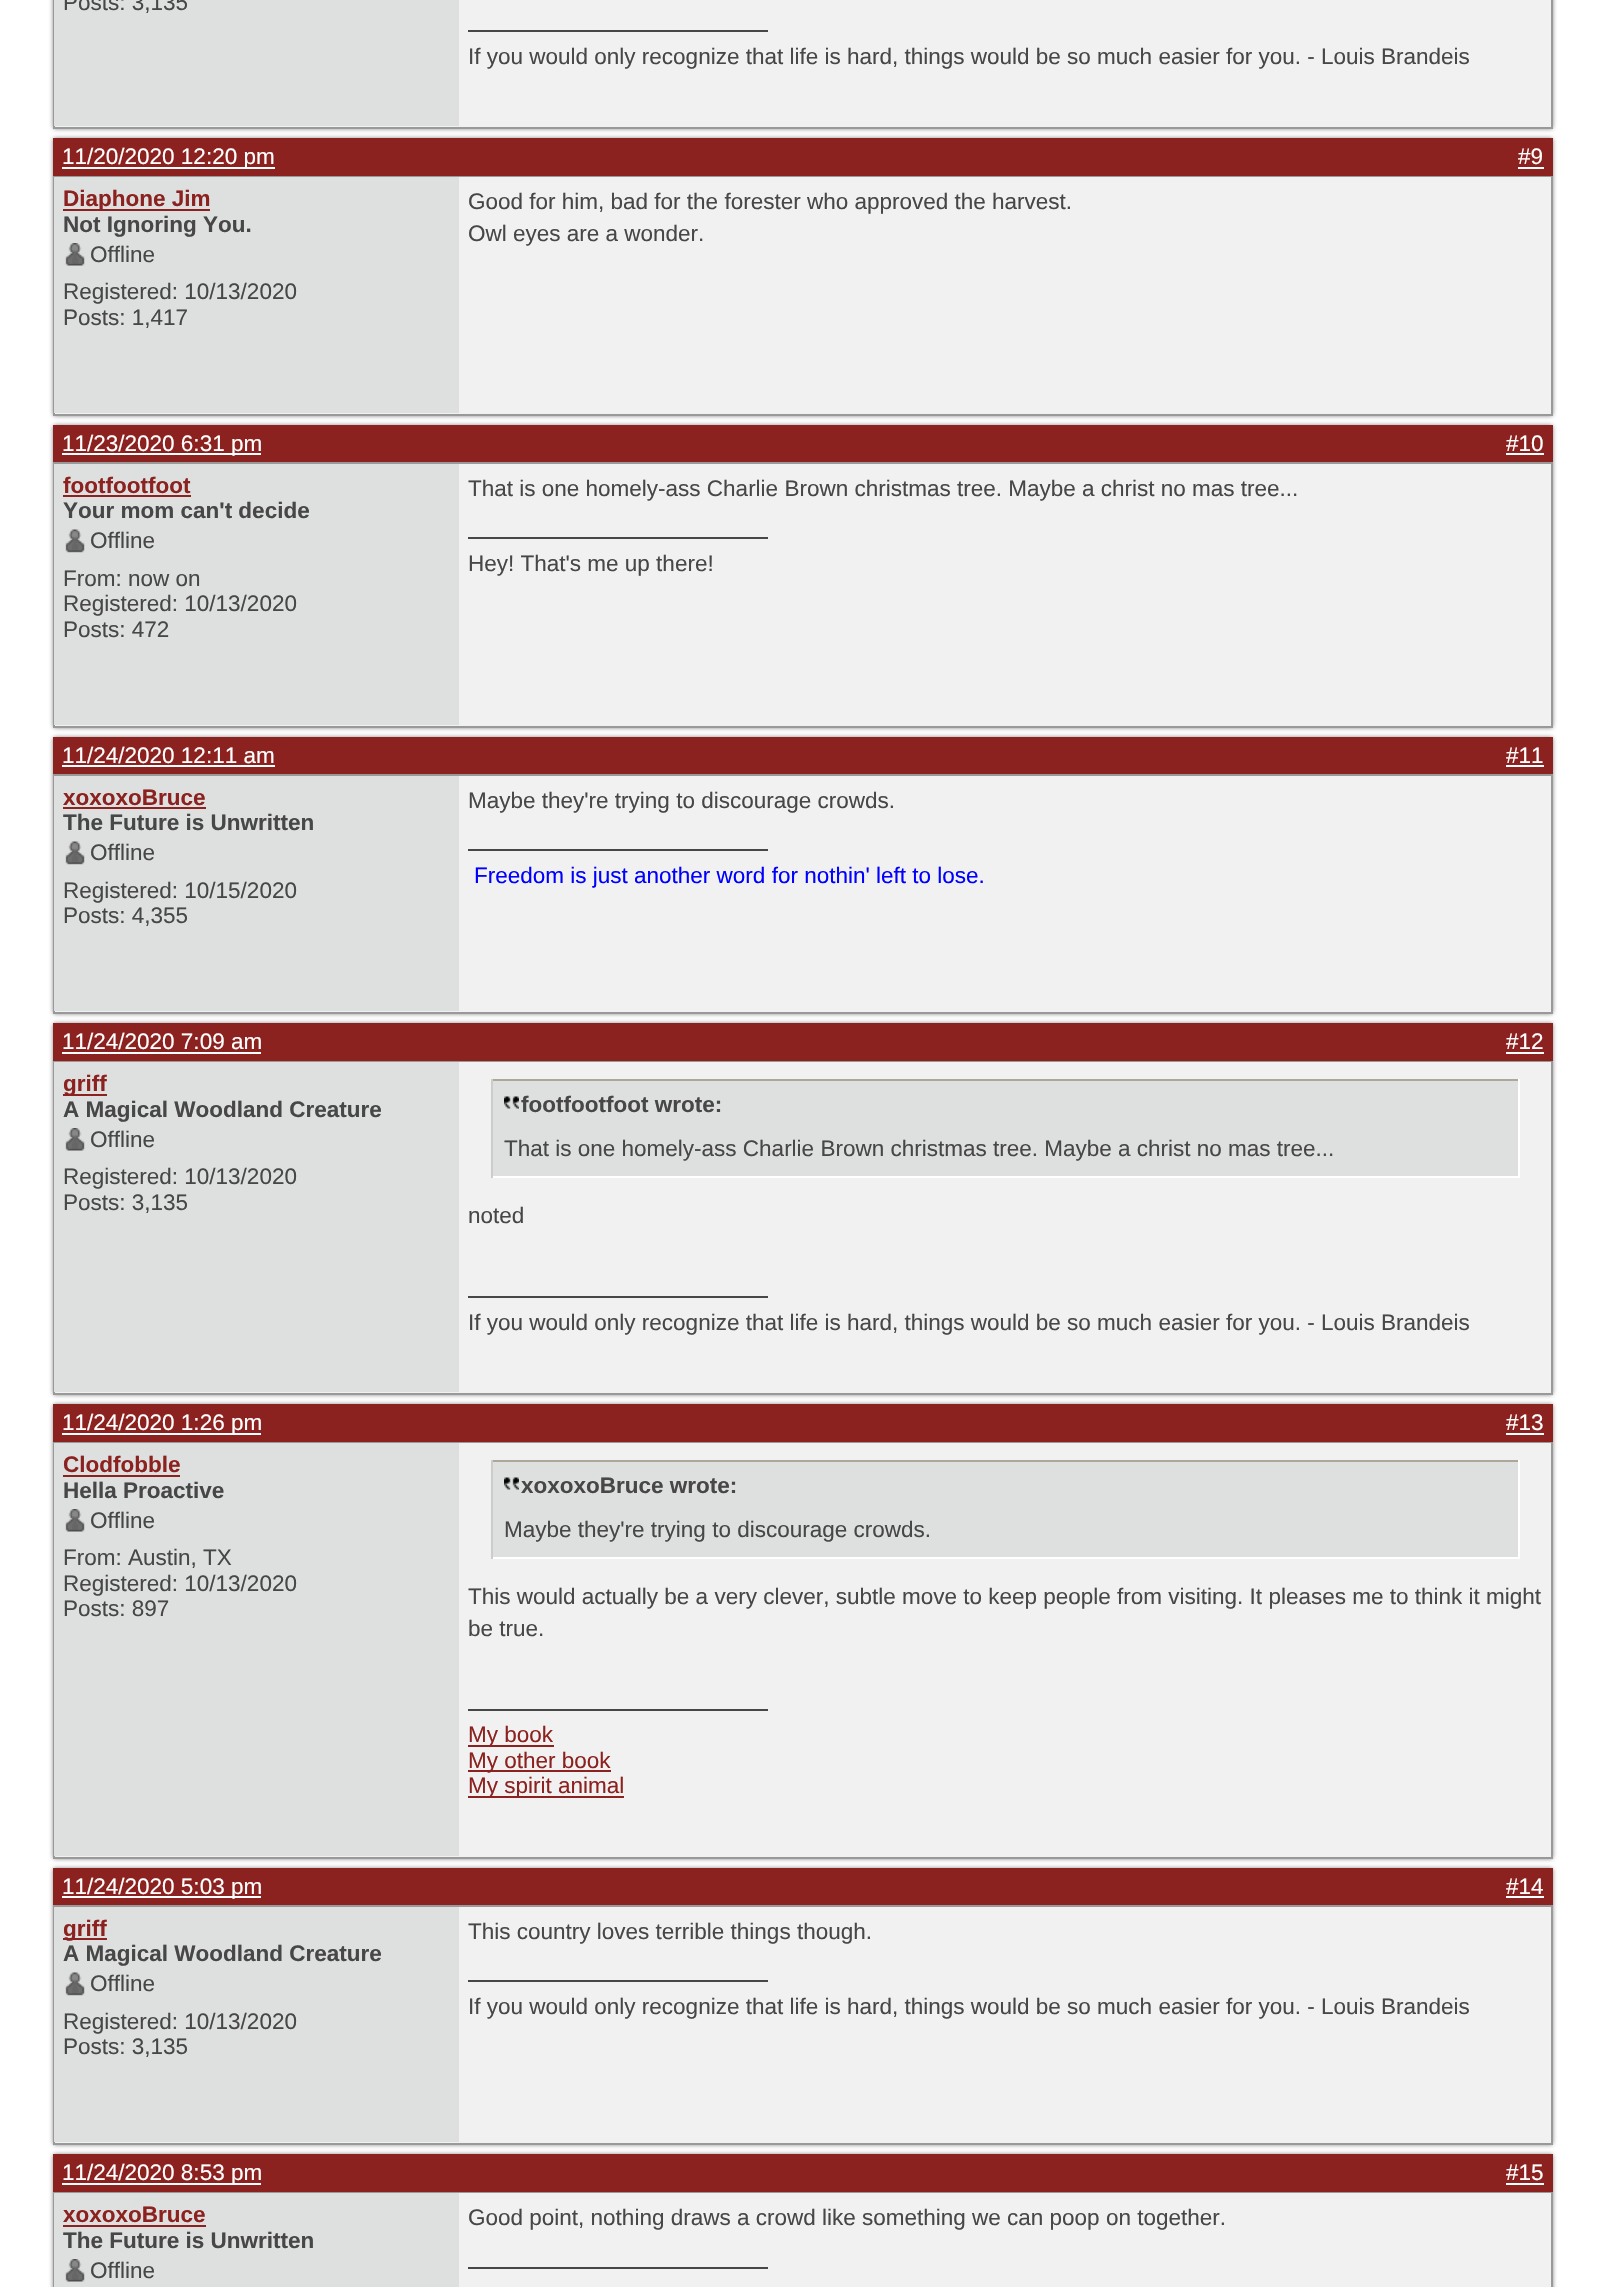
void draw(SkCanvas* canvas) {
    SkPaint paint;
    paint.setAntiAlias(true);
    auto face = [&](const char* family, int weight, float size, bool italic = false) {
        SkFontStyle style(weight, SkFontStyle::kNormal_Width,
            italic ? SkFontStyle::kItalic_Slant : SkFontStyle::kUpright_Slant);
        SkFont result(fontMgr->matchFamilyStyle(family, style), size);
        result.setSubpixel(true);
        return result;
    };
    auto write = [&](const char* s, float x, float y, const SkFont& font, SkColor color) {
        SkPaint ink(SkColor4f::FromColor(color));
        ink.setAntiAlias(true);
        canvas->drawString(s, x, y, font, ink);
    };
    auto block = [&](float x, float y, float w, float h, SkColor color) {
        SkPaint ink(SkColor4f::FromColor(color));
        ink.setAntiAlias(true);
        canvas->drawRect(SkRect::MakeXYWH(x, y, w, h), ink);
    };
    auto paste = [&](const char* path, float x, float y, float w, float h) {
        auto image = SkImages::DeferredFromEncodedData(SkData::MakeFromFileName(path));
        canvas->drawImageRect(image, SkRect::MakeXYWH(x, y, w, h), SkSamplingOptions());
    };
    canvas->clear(SK_ColorWHITE);
    paint.setColor(SkColorSetRGB(136, 136, 136));
    paint.setMaskFilter(SkMaskFilter::MakeBlur(kNormal_SkBlurStyle, 2));
    canvas->drawRoundRect(SkRect::MakeXYWH(53, -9, 1500, 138), 3, 3, paint);
    paint.setMaskFilter(nullptr);
    block(55, 126, 1496, 1, SkColorSetRGB(241, 241, 241));
    paint.setStyle(SkPaint::kStroke_Style);
    paint.setStrokeWidth(2);
    paint.setColor(SkColorSetRGB(153, 153, 153));
    canvas->drawRect(SkRect::MakeXYWH(54, -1, 1498, 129), paint);
    block(54, 0, 405, 126, SkColorSetRGB(222, 223, 223));
    auto kFont1 = face("Liberation Sans", 400, 22.5f);
    write("Posts: 3,135", 63, 10, kFont1, SkColorSetRGB(71, 71, 71));
    block(459, 0, 1092, 126, SkColorSetRGB(241, 241, 241));
    block(468, 30, 300, 2, SkColorSetRGB(71, 71, 71));
    write("If you would only recognize that life is hard, things would be so much easier for you. - Louis Brandeis", 468, 64, kFont1, SkColorSetRGB(71, 71, 71));
    paint.setStyle(SkPaint::kFill_Style);
    paint.setColor(SkColorSetRGB(136, 136, 136));
    paint.setMaskFilter(SkMaskFilter::MakeBlur(kNormal_SkBlurStyle, 2));
    canvas->drawRoundRect(SkRect::MakeXYWH(53, 138, 1500, 278), 3, 3, paint);
    paint.setMaskFilter(nullptr);
    block(53, 138, 1500, 38, SkColorSetRGB(140, 34, 31));
    block(62, 167, 213, 2, SK_ColorWHITE);
    write("11/20/2020 12:20 pm", 62, 164, kFont1, SK_ColorWHITE);
    write("#9", 1518, 164, kFont1, SK_ColorWHITE);
    block(1518, 167, 26, 2, SK_ColorWHITE);
    block(55, 258, 1496, 156, SkColorSetRGB(241, 241, 241));
    paint.setStyle(SkPaint::kStroke_Style);
    paint.setColor(SkColorSetRGB(153, 153, 153));
    canvas->drawRect(SkRect::MakeXYWH(54, 177, 1498, 238), paint);
    block(54, 177, 405, 236, SkColorSetRGB(222, 223, 223));
    block(63, 209, 147, 2, SkColorSetRGB(140, 34, 31));
    auto kFont2 = face("Liberation Sans", 700, 22.5f);
    write("Diaphone Jim", 63, 206, kFont2, SkColorSetRGB(140, 34, 31));
    write("Not Ignoring You.", 63, 232, kFont2, SkColorSetRGB(71, 71, 71));
    paste("pic1.png", 65, 243, 20, 23);
    write("Offline", 90, 262, kFont1, SkColorSetRGB(71, 71, 71));
    write("Registered: 10/13/2020", 63, 299, kFont1, SkColorSetRGB(71, 71, 71));
    write("Posts: 1,417", 63, 325, kFont1, SkColorSetRGB(71, 71, 71));
    block(459, 177, 1092, 81, SkColorSetRGB(241, 241, 241));
    write("Good for him, bad for the forester who approved the harvest.", 468, 209, kFont1, SkColorSetRGB(71, 71, 71));
    write("Owl eyes are a wonder.", 468, 241, kFont1, SkColorSetRGB(71, 71, 71));
    paint.setStyle(SkPaint::kFill_Style);
    paint.setColor(SkColorSetRGB(136, 136, 136));
    paint.setMaskFilter(SkMaskFilter::MakeBlur(kNormal_SkBlurStyle, 2));
    canvas->drawRoundRect(SkRect::MakeXYWH(53, 425, 1500, 303), 3, 3, paint);
    paint.setMaskFilter(nullptr);
    block(53, 425, 1500, 37, SkColorSetRGB(140, 34, 31));
    block(62, 453, 199, 2, SK_ColorWHITE);
    write("11/23/2020 6:31 pm", 62, 451, kFont1, SK_ColorWHITE);
    write("#10", 1506, 451, kFont1, SK_ColorWHITE);
    block(1506, 453, 38, 2, SK_ColorWHITE);
    block(55, 585, 1496, 141, SkColorSetRGB(241, 241, 241));
    paint.setStyle(SkPaint::kStroke_Style);
    paint.setColor(SkColorSetRGB(153, 153, 153));
    canvas->drawRect(SkRect::MakeXYWH(54, 463, 1498, 264), paint);
    block(54, 464, 405, 261, SkColorSetRGB(222, 223, 223));
    write("footfootfoot", 63, 493, kFont2, SkColorSetRGB(140, 34, 31));
    block(63, 495, 128, 2, SkColorSetRGB(140, 34, 31));
    write("Your mom can't decide", 63, 518, kFont2, SkColorSetRGB(71, 71, 71));
    paste("pic2.png", 65, 529, 20, 24);
    write("Offline", 90, 548, kFont1, SkColorSetRGB(71, 71, 71));
    write("From: now on", 63, 586, kFont1, SkColorSetRGB(71, 71, 71));
    write("Registered: 10/13/2020", 63, 611, kFont1, SkColorSetRGB(71, 71, 71));
    write("Posts: 472", 63, 637, kFont1, SkColorSetRGB(71, 71, 71));
    block(459, 464, 1092, 121, SkColorSetRGB(241, 241, 241));
    write("That is one homely-ass Charlie Brown christmas tree. Maybe a christ no mas tree...", 468, 496, kFont1, SkColorSetRGB(71, 71, 71));
    block(468, 537, 300, 2, SkColorSetRGB(71, 71, 71));
    write("Hey! That's me up there!", 468, 571, kFont1, SkColorSetRGB(71, 71, 71));
    paint.setStyle(SkPaint::kFill_Style);
    paint.setColor(SkColorSetRGB(136, 136, 136));
    paint.setMaskFilter(SkMaskFilter::MakeBlur(kNormal_SkBlurStyle, 2));
    canvas->drawRoundRect(SkRect::MakeXYWH(53, 737, 1500, 277), 3, 3, paint);
    paint.setMaskFilter(nullptr);
    block(53, 737, 1500, 37, SkColorSetRGB(140, 34, 31));
    write("11/24/2020 12:11 am", 62, 763, kFont1, SK_ColorWHITE);
    block(62, 765, 213, 2, SK_ColorWHITE);
    write("#11", 1506, 763, kFont1, SK_ColorWHITE);
    block(1506, 765, 38, 2, SK_ColorWHITE);
    block(55, 923, 1496, 89, SkColorSetRGB(241, 241, 241));
    paint.setStyle(SkPaint::kStroke_Style);
    paint.setColor(SkColorSetRGB(153, 153, 153));
    canvas->drawRect(SkRect::MakeXYWH(54, 775, 1498, 238), paint);
    block(54, 776, 405, 235, SkColorSetRGB(222, 223, 223));
    write("xoxoxoBruce", 63, 805, kFont2, SkColorSetRGB(140, 34, 31));
    block(63, 807, 143, 2, SkColorSetRGB(140, 34, 31));
    write("The Future is Unwritten", 63, 830, kFont2, SkColorSetRGB(71, 71, 71));
    paste("pic2.png", 65, 841, 20, 24);
    write("Offline", 90, 860, kFont1, SkColorSetRGB(71, 71, 71));
    write("Registered: 10/15/2020", 63, 898, kFont1, SkColorSetRGB(71, 71, 71));
    write("Posts: 4,355", 63, 923, kFont1, SkColorSetRGB(71, 71, 71));
    block(459, 776, 1092, 147, SkColorSetRGB(241, 241, 241));
    write("Maybe they're trying to discourage crowds.", 468, 808, kFont1, SkColorSetRGB(71, 71, 71));
    block(468, 849, 300, 2, SkColorSetRGB(71, 71, 71));
    write("Freedom is just another word for nothin' left to lose.", 474, 883, kFont1, SkColorSetRGB(0, 0, 255));
    paint.setStyle(SkPaint::kFill_Style);
    paint.setColor(SkColorSetRGB(136, 136, 136));
    paint.setMaskFilter(SkMaskFilter::MakeBlur(kNormal_SkBlurStyle, 2));
    canvas->drawRoundRect(SkRect::MakeXYWH(53, 1023, 1500, 372), 3, 3, paint);
    paint.setMaskFilter(nullptr);
    block(53, 1023, 1500, 38, SkColorSetRGB(140, 34, 31));
    write("11/24/2020 7:09 am", 62, 1049, kFont1, SK_ColorWHITE);
    block(62, 1052, 199, 2, SK_ColorWHITE);
    write("#12", 1506, 1049, kFont1, SK_ColorWHITE);
    block(1506, 1052, 38, 2, SK_ColorWHITE);
    block(55, 1392, 1496, 1, SkColorSetRGB(241, 241, 241));
    paint.setStyle(SkPaint::kStroke_Style);
    paint.setColor(SkColorSetRGB(153, 153, 153));
    canvas->drawRect(SkRect::MakeXYWH(54, 1062, 1498, 332), paint);
    block(54, 1062, 405, 330, SkColorSetRGB(222, 223, 223));
    block(63, 1094, 44, 2, SkColorSetRGB(140, 34, 31));
    write("griff", 63, 1091, kFont2, SkColorSetRGB(140, 34, 31));
    write("A Magical Woodland Creature", 63, 1117, kFont2, SkColorSetRGB(71, 71, 71));
    paste("pic1.png", 65, 1128, 20, 23);
    write("Offline", 90, 1147, kFont1, SkColorSetRGB(71, 71, 71));
    write("Registered: 10/13/2020", 63, 1184, kFont1, SkColorSetRGB(71, 71, 71));
    write("Posts: 3,135", 63, 1210, kFont1, SkColorSetRGB(71, 71, 71));
    block(459, 1062, 1092, 330, SkColorSetRGB(241, 241, 241));
    block(493, 1081, 1025, 95, SkColorSetRGB(222, 223, 223));
    block(491, 1079, 1029, 2, SkColorSetRGB(172, 168, 153));
    block(1518, 1079, 2, 99, SK_ColorWHITE);
    block(491, 1176, 1029, 2, SK_ColorWHITE);
    block(491, 1079, 2, 99, SkColorSetRGB(204, 204, 204));
    paste("pic3.png", 504, 1096, 15, 13);
    write("footfootfoot wrote:", 521, 1112, kFont2, SkColorSetRGB(71, 71, 71));
    write("That is one homely-ass Charlie Brown christmas tree. Maybe a christ no mas tree...", 504, 1156, kFont1, SkColorSetRGB(71, 71, 71));
    write("noted", 468, 1223, kFont1, SkColorSetRGB(71, 71, 71));
    block(468, 1296, 300, 2, SkColorSetRGB(71, 71, 71));
    write("If you would only recognize that life is hard, things would be so much easier for you. - Louis Brandeis", 468, 1330, kFont1, SkColorSetRGB(71, 71, 71));
    paint.setStyle(SkPaint::kFill_Style);
    paint.setColor(SkColorSetRGB(136, 136, 136));
    paint.setMaskFilter(SkMaskFilter::MakeBlur(kNormal_SkBlurStyle, 2));
    canvas->drawRoundRect(SkRect::MakeXYWH(53, 1404, 1500, 455), 3, 3, paint);
    paint.setMaskFilter(nullptr);
    block(53, 1404, 1500, 38, SkColorSetRGB(140, 34, 31));
    block(62, 1433, 199, 2, SK_ColorWHITE);
    write("11/24/2020 1:26 pm", 62, 1430, kFont1, SK_ColorWHITE);
    write("#13", 1506, 1430, kFont1, SK_ColorWHITE);
    block(1506, 1433, 38, 2, SK_ColorWHITE);
    block(55, 1856, 1496, 1, SkColorSetRGB(241, 241, 241));
    paint.setStyle(SkPaint::kStroke_Style);
    paint.setColor(SkColorSetRGB(153, 153, 153));
    canvas->drawRect(SkRect::MakeXYWH(54, 1443, 1498, 415), paint);
    block(54, 1443, 405, 413, SkColorSetRGB(222, 223, 223));
    write("Clodfobble", 63, 1472, kFont2, SkColorSetRGB(140, 34, 31));
    block(63, 1475, 117, 2, SkColorSetRGB(140, 34, 31));
    write("Hella Proactive", 63, 1498, kFont2, SkColorSetRGB(71, 71, 71));
    paste("pic1.png", 65, 1509, 20, 23);
    write("Offline", 90, 1528, kFont1, SkColorSetRGB(71, 71, 71));
    write("From: Austin, TX", 63, 1565, kFont1, SkColorSetRGB(71, 71, 71));
    write("Registered: 10/13/2020", 63, 1591, kFont1, SkColorSetRGB(71, 71, 71));
    write("Posts: 897", 63, 1616, kFont1, SkColorSetRGB(71, 71, 71));
    block(459, 1443, 1092, 413, SkColorSetRGB(241, 241, 241));
    block(493, 1462, 1025, 95, SkColorSetRGB(222, 223, 223));
    block(491, 1460, 1029, 2, SkColorSetRGB(172, 168, 153));
    block(1518, 1460, 2, 99, SK_ColorWHITE);
    block(491, 1557, 1029, 2, SK_ColorWHITE);
    block(491, 1460, 2, 99, SkColorSetRGB(204, 204, 204));
    paste("pic3.png", 504, 1477, 15, 13);
    write("xoxoxoBruce wrote:", 521, 1493, kFont2, SkColorSetRGB(71, 71, 71));
    write("Maybe they're trying to discourage crowds.", 504, 1537, kFont1, SkColorSetRGB(71, 71, 71));
    write("This would actually be a very clever, subtle move to keep people from visiting. It pleases me to think it might", 468, 1604, kFont1, SkColorSetRGB(71, 71, 71));
    write("be true.", 468, 1636, kFont1, SkColorSetRGB(71, 71, 71));
    block(468, 1709, 300, 2, SkColorSetRGB(71, 71, 71));
    block(468, 1745, 86, 2, SkColorSetRGB(140, 34, 31));
    write("My book", 468, 1742, kFont1, SkColorSetRGB(140, 34, 31));
    block(468, 1770, 143, 2, SkColorSetRGB(140, 34, 31));
    write("My other book", 468, 1768, kFont1, SkColorSetRGB(140, 34, 31));
    block(468, 1796, 156, 2, SkColorSetRGB(140, 34, 31));
    write("My spirit animal", 468, 1793, kFont1, SkColorSetRGB(140, 34, 31));
    paint.setStyle(SkPaint::kFill_Style);
    paint.setColor(SkColorSetRGB(136, 136, 136));
    paint.setMaskFilter(SkMaskFilter::MakeBlur(kNormal_SkBlurStyle, 2));
    canvas->drawRoundRect(SkRect::MakeXYWH(53, 1868, 1500, 277), 3, 3, paint);
    paint.setMaskFilter(nullptr);
    block(53, 1868, 1500, 37, SkColorSetRGB(140, 34, 31));
    block(62, 1896, 199, 2, SK_ColorWHITE);
    write("11/24/2020 5:03 pm", 62, 1894, kFont1, SK_ColorWHITE);
    write("#14", 1506, 1894, kFont1, SK_ColorWHITE);
    block(1506, 1896, 38, 2, SK_ColorWHITE);
    block(55, 2028, 1496, 115, SkColorSetRGB(241, 241, 241));
    paint.setStyle(SkPaint::kStroke_Style);
    paint.setColor(SkColorSetRGB(153, 153, 153));
    canvas->drawRect(SkRect::MakeXYWH(54, 1906, 1498, 238), paint);
    block(54, 1907, 405, 235, SkColorSetRGB(222, 223, 223));
    block(63, 1938, 44, 2, SkColorSetRGB(140, 34, 31));
    write("griff", 63, 1936, kFont2, SkColorSetRGB(140, 34, 31));
    write("A Magical Woodland Creature", 63, 1961, kFont2, SkColorSetRGB(71, 71, 71));
    paste("pic2.png", 65, 1972, 20, 24);
    write("Offline", 90, 1991, kFont1, SkColorSetRGB(71, 71, 71));
    write("Registered: 10/13/2020", 63, 2029, kFont1, SkColorSetRGB(71, 71, 71));
    write("Posts: 3,135", 63, 2054, kFont1, SkColorSetRGB(71, 71, 71));
    block(459, 1907, 1092, 121, SkColorSetRGB(241, 241, 241));
    write("This country loves terrible things though.", 468, 1939, kFont1, SkColorSetRGB(71, 71, 71));
    block(468, 1980, 300, 2, SkColorSetRGB(71, 71, 71));
    write("If you would only recognize that life is hard, things would be so much easier for you. - Louis Brandeis", 468, 2014, kFont1, SkColorSetRGB(71, 71, 71));
    paint.setStyle(SkPaint::kFill_Style);
    paint.setColor(SkColorSetRGB(136, 136, 136));
    paint.setMaskFilter(SkMaskFilter::MakeBlur(kNormal_SkBlurStyle, 2));
    canvas->drawRoundRect(SkRect::MakeXYWH(53, 2154, 1500, 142), 3, 3, paint);
    paint.setMaskFilter(nullptr);
    block(53, 2154, 1500, 38, SkColorSetRGB(140, 34, 31));
    block(62, 2183, 199, 2, SK_ColorWHITE);
    write("11/24/2020 8:53 pm", 62, 2180, kFont1, SK_ColorWHITE);
    write("#15", 1506, 2180, kFont1, SK_ColorWHITE);
    block(1506, 2183, 38, 2, SK_ColorWHITE);
    paint.setStyle(SkPaint::kStroke_Style);
    paint.setColor(SkColorSetRGB(153, 153, 153));
    canvas->drawRect(SkRect::MakeXYWH(54, 2193, 1498, 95), paint);
    block(54, 2193, 405, 94, SkColorSetRGB(222, 223, 223));
    write("xoxoxoBruce", 63, 2222, kFont2, SkColorSetRGB(140, 34, 31));
    block(63, 2225, 143, 2, SkColorSetRGB(140, 34, 31));
    write("The Future is Unwritten", 63, 2248, kFont2, SkColorSetRGB(71, 71, 71));
    paste("pic1.png", 65, 2259, 20, 23);
    write("Offline", 90, 2278, kFont1, SkColorSetRGB(71, 71, 71));
    block(459, 2193, 1092, 94, SkColorSetRGB(241, 241, 241));
    write("Good point, nothing draws a crowd like something we can poop on together.", 468, 2225, kFont1, SkColorSetRGB(71, 71, 71));
    block(468, 2267, 300, 2, SkColorSetRGB(71, 71, 71));
}
